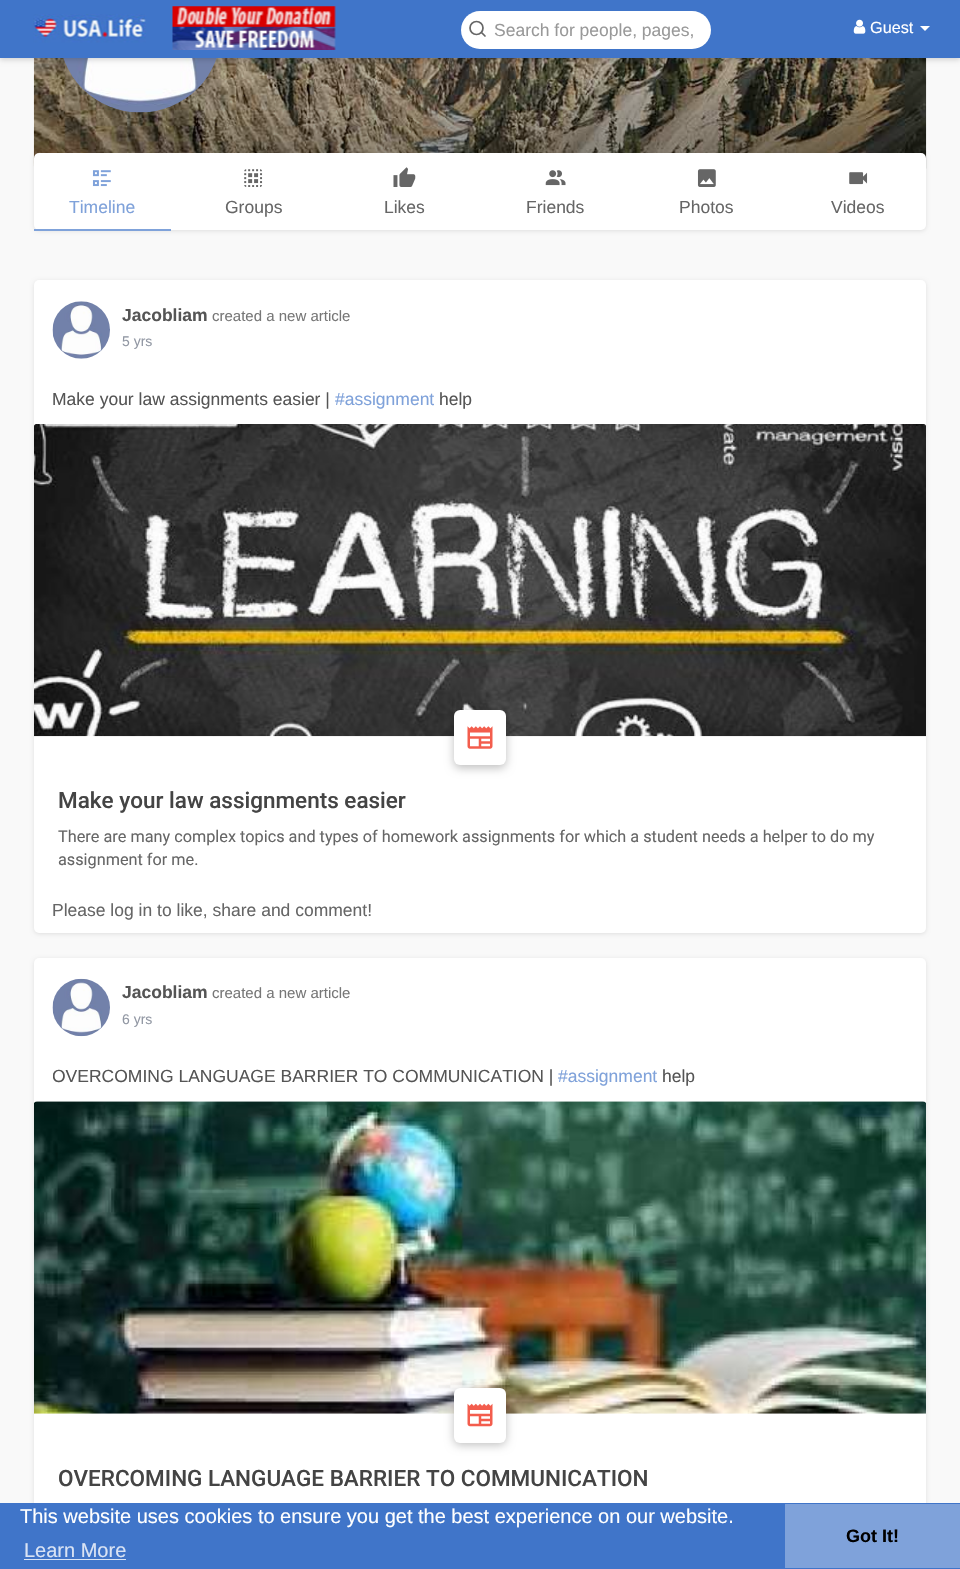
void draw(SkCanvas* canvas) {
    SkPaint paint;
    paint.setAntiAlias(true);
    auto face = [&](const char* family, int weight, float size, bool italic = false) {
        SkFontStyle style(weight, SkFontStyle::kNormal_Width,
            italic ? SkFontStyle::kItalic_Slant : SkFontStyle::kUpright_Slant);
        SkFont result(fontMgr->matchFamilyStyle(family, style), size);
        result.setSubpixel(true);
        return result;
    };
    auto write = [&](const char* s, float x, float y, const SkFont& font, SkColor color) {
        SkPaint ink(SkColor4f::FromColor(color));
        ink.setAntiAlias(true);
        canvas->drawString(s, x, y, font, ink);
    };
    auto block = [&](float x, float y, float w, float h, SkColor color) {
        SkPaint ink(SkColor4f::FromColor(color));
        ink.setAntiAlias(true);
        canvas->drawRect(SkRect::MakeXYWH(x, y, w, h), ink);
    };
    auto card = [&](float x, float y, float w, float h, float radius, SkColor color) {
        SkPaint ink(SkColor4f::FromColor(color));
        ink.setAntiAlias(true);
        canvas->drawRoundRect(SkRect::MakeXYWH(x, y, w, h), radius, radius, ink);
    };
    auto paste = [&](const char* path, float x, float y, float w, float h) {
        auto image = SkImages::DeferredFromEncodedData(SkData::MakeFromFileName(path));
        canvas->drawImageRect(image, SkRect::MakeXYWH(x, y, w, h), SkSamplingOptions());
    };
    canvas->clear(SkColorSetRGB(249, 249, 249));
    paste("pic5.png", 33, 58, 894, 111);
    {
        const SkColor colors[] = {SkColorSetARGB(0, 0, 0, 0), SkColorSetARGB(115, 0, 0, 0)};
        const float stops[] = {0, 1};
        const SkPoint ends[] = {{480, -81}, {480, 169}};
        paint.setShader(SkGradientShader::MakeLinear(ends, colors, stops, 2, SkTileMode::kClamp));
        paint.setAlpha(255);
    }
    canvas->drawRect(SkRect::MakeXYWH(34, 58, 892, 100), paint);
    paint.setShader(nullptr);
    paint.setColor(SkColorSetARGB(38, 0, 0, 0));
    paint.setMaskFilter(SkMaskFilter::MakeBlur(kNormal_SkBlurStyle, 6));
    canvas->drawRoundRect(SkRect::MakeXYWH(59, -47, 162, 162), 81, 81, paint);
    paint.setMaskFilter(nullptr);
    paste("pic4.png", 63, 58, 154, 55);
    paint.setMaskFilter(SkMaskFilter::MakeBlur(kNormal_SkBlurStyle, 2.5f));
    canvas->drawRect(SkRect::MakeXYWH(0, 3, 960, 57), paint);
    paint.setMaskFilter(nullptr);
    block(0, 0, 960, 58, SkColorSetRGB(64, 117, 201));
    paste("pic1.png", 33, 14, 113, 29);
    paste("pic2.png", 172, 6, 164, 44);
    card(461, 11, 250, 38, 19, SK_ColorWHITE);
    paint.setStyle(SkPaint::kStroke_Style);
    paint.setStrokeWidth(1.7f);
    paint.setColor(SkColorSetRGB(102, 102, 102));
    canvas->drawCircle(476.5f, 28, 6.5f, paint);
    paint.setStrokeCap(SkPaint::kRound_Cap);
    paint.setStrokeJoin(SkPaint::kRound_Join);
    canvas->drawPath(SkPathBuilder().moveTo(485, 36).lineTo(481.5f, 32.5f).detach(), paint);
    auto kFont1 = face("Liberation Sans", 400, 17.5f);
    write("Search for people, pages,", 494, 36, kFont1, SkColorSetRGB(153, 153, 153));
    paste("pic3.png", 853, 19, 13, 15);
    auto kFont2 = face("Liberation Sans", 400, 16.25f);
    write("Guest", 870, 33, kFont2, SK_ColorWHITE);
    paint.setStyle(SkPaint::kFill_Style);
    paint.setColor(SK_ColorWHITE);
    canvas->drawPath(SkPathBuilder().moveTo(920, 26).lineTo(930, 26).lineTo(925, 31).close().detach(), paint);
    paint.setColor(SkColorSetARGB(26, 0, 0, 0));
    paint.setMaskFilter(SkMaskFilter::MakeBlur(kNormal_SkBlurStyle, 2));
    canvas->drawRoundRect(SkRect::MakeXYWH(34, 154, 892, 77), 5, 5, paint);
    paint.setMaskFilter(nullptr);
    card(34, 153, 892, 77, 5, SK_ColorWHITE);
    block(34, 229, 137, 2, SkColorSetRGB(127, 162, 218));
    paste("pic6.png", 92, 170, 19, 17);
    write("Timeline", 69, 213, kFont1, SkColorSetRGB(127, 162, 218));
    paste("pic7.png", 244, 169, 19, 18);
    write("Groups", 225, 213, kFont1, SkColorSetRGB(102, 102, 102));
    paste("pic8.png", 393, 167, 23, 20);
    write("Likes", 384, 213, kFont1, SkColorSetRGB(102, 102, 102));
    paste("pic9.png", 545, 170, 21, 16);
    write("Friends", 526, 213, kFont1, SkColorSetRGB(102, 102, 102));
    paste("pic10.png", 697, 169, 19, 18);
    write("Photos", 679, 213, kFont1, SkColorSetRGB(102, 102, 102));
    paste("pic11.png", 849, 172, 19, 13);
    write("Videos", 831, 213, kFont1, SkColorSetRGB(102, 102, 102));
    paint.setMaskFilter(SkMaskFilter::MakeBlur(kNormal_SkBlurStyle, 2));
    canvas->drawRoundRect(SkRect::MakeXYWH(34, 281, 892, 653), 5, 5, paint);
    paint.setMaskFilter(nullptr);
    card(34, 280, 892, 653, 5, SK_ColorWHITE);
    paste("pic12.png", 52, 301, 58, 58);
    auto kFont3 = face("Liberation Sans", 700, 17.5f);
    write("Jacobliam", 122, 321, kFont3, SkColorSetRGB(85, 85, 85));
    auto kFont4 = face("Liberation Sans", 400, 15);
    write("created a new article", 212, 321, kFont4, SkColorSetRGB(119, 119, 119));
    auto kFont5 = face("Liberation Sans", 400, 14);
    write("5 yrs", 122, 346, kFont5, SkColorSetRGB(145, 151, 163));
    write("Make your law assignments easier |", 52, 405, kFont1, SkColorSetRGB(85, 85, 85));
    write("#assignment", 335, 405, kFont1, SkColorSetRGB(127, 162, 218));
    write("help", 439, 405, kFont1, SkColorSetRGB(85, 85, 85));
    paste("pic13.png", 34, 424, 892, 313);
    paint.setColor(SkColorSetARGB(64, 0, 0, 0));
    paint.setMaskFilter(SkMaskFilter::MakeBlur(kNormal_SkBlurStyle, 5));
    canvas->drawRoundRect(SkRect::MakeXYWH(454, 713, 52, 55), 6, 6, paint);
    paint.setMaskFilter(nullptr);
    card(454, 710, 52, 55, 6, SK_ColorWHITE);
    paste("pic14.png", 467, 726, 26, 23);
    auto kFont6 = face("Roboto", 500, 22.5f);
    write("Make your law assignments easier", 58, 808, kFont6, SkColorSetRGB(68, 68, 68));
    auto kFont7 = face("Roboto", 400, 16.25f);
    write("There are many complex topics and types of homework assignments for which a student needs a helper to do my", 58, 842, kFont7, SkColorSetRGB(102, 102, 102));
    write("assignment for me.", 58, 865, kFont7, SkColorSetRGB(102, 102, 102));
    write("Please log in to like, share and comment!", 52, 916, kFont1, SkColorSetRGB(102, 102, 102));
    paint.setColor(SkColorSetARGB(26, 0, 0, 0));
    paint.setMaskFilter(SkMaskFilter::MakeBlur(kNormal_SkBlurStyle, 2));
    canvas->drawRoundRect(SkRect::MakeXYWH(34, 959, 892, 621), 5, 5, paint);
    paint.setMaskFilter(nullptr);
    card(34, 958, 892, 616, 5, SK_ColorWHITE);
    paste("pic15.png", 52, 978, 58, 59);
    write("Jacobliam", 122, 998, kFont3, SkColorSetRGB(85, 85, 85));
    write("created a new article", 212, 998, kFont4, SkColorSetRGB(119, 119, 119));
    write("6 yrs", 122, 1024, kFont5, SkColorSetRGB(145, 151, 163));
    canvas->save();
    canvas->clipRect(SkRect::MakeXYWH(53, 1064, 855, 25));
    write("OVERCOMING LANGUAGE BARRIER TO COMMUNICATION |", 52, 1082, kFont1, SkColorSetRGB(85, 85, 85));
    canvas->restore();
    write("#assignment", 558, 1082, kFont1, SkColorSetRGB(127, 162, 218));
    write("help", 662, 1082, kFont1, SkColorSetRGB(85, 85, 85));
    paste("pic16.png", 34, 1101, 892, 313);
    paint.setColor(SkColorSetARGB(64, 0, 0, 0));
    paint.setMaskFilter(SkMaskFilter::MakeBlur(kNormal_SkBlurStyle, 5));
    canvas->drawRoundRect(SkRect::MakeXYWH(454, 1390, 52, 55), 6, 6, paint);
    paint.setMaskFilter(nullptr);
    card(454, 1388, 52, 55, 6, SK_ColorWHITE);
    paste("pic17.png", 467, 1403, 26, 24);
    write("OVERCOMING LANGUAGE BARRIER TO COMMUNICATION", 58, 1486, kFont6, SkColorSetRGB(68, 68, 68));
    block(0, 1503, 960, 66, SkColorSetRGB(64, 117, 201));
    auto kFont8 = face("Liberation Sans", 400, 20);
    write("This website uses cookies to ensure you get the best experience on our website.", 20, 1523, kFont8, SK_ColorWHITE);
    write("Learn More", 24, 1557, kFont8, SkColorSetRGB(217, 227, 244));
    block(24, 1559, 102, 1, SkColorSetRGB(217, 227, 244));
    block(785, 1504, 175, 64, SkColorSetRGB(127, 162, 218));
    auto kFont9 = face("Liberation Sans", 700, 18);
    write("Got It!", 846, 1542, kFont9, SK_ColorBLACK);
}
